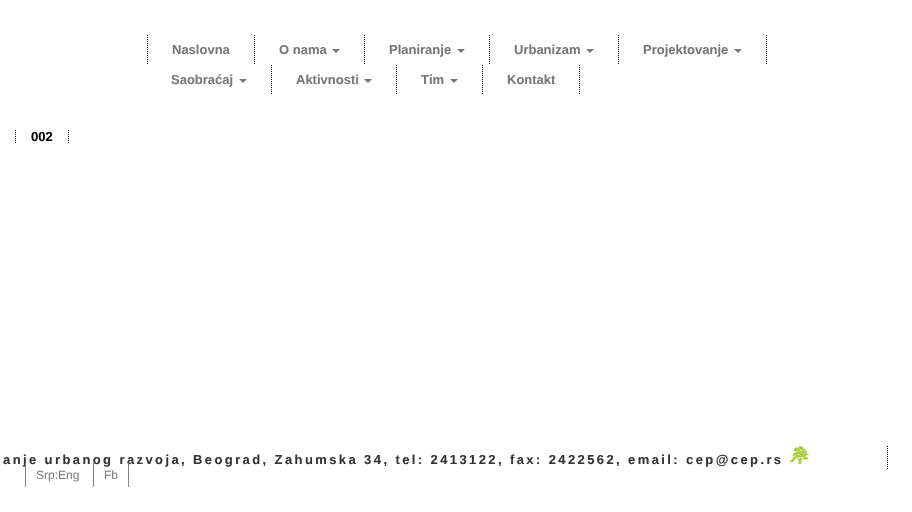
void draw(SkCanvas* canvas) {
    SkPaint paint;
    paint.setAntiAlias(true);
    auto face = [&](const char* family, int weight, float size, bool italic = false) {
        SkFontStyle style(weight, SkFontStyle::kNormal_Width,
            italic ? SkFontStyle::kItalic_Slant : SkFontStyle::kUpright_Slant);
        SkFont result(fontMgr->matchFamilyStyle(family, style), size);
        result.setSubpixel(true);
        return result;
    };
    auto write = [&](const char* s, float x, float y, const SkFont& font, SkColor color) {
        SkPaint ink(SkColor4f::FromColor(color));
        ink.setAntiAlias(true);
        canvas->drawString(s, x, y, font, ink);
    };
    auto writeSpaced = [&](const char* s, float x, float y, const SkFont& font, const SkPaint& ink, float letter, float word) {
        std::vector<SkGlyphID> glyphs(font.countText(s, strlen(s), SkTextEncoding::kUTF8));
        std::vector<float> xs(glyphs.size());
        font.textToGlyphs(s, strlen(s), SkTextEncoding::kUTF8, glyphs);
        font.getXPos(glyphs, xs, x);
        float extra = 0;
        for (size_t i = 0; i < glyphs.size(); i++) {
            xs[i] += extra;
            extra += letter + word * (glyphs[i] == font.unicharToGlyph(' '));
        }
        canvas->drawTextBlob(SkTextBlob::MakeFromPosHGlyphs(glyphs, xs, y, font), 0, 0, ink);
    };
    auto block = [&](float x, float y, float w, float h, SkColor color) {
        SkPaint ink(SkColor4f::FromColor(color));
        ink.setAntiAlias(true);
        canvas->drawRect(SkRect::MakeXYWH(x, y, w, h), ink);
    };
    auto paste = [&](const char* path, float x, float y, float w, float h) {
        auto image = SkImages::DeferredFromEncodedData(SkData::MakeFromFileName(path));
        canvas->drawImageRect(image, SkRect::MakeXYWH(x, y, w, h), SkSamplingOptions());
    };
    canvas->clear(SK_ColorWHITE);
    paint.setStyle(SkPaint::kStroke_Style);
    paint.setStrokeWidth(1);
    paint.setColor(SK_ColorBLACK);
    paint.setPathEffect(SkDashPathEffect::Make({{1, 1}}, 0));
    canvas->drawPath(SkPathBuilder().moveTo(254.5f, 35).lineTo(254.5f, 65).detach(), paint);
    paint.setPathEffect(nullptr);
    paint.setPathEffect(SkDashPathEffect::Make({{1, 1}}, 0));
    canvas->drawPath(SkPathBuilder().moveTo(147.5f, 35).lineTo(147.5f, 65).detach(), paint);
    paint.setPathEffect(nullptr);
    auto kFont1 = face("Liberation Sans", 700, 13);
    write("Naslovna", 172, 54, kFont1, SkColorSetRGB(119, 119, 119));
    paint.setPathEffect(SkDashPathEffect::Make({{1, 1}}, 0));
    canvas->drawPath(SkPathBuilder().moveTo(364.5f, 35).lineTo(364.5f, 65).detach(), paint);
    paint.setPathEffect(nullptr);
    write("O nama", 279, 54, kFont1, SkColorSetRGB(119, 119, 119));
    paint.setStyle(SkPaint::kFill_Style);
    paint.setColor(SkColorSetRGB(119, 119, 119));
    canvas->drawPath(SkPathBuilder().moveTo(332, 49).lineTo(340, 49).lineTo(336, 53).close().detach(), paint);
    paint.setStyle(SkPaint::kStroke_Style);
    paint.setColor(SK_ColorBLACK);
    paint.setPathEffect(SkDashPathEffect::Make({{1, 1}}, 0));
    canvas->drawPath(SkPathBuilder().moveTo(489.5f, 35).lineTo(489.5f, 65).detach(), paint);
    paint.setPathEffect(nullptr);
    write("Planiranje", 389, 54, kFont1, SkColorSetRGB(119, 119, 119));
    paint.setStyle(SkPaint::kFill_Style);
    paint.setColor(SkColorSetRGB(119, 119, 119));
    canvas->drawPath(SkPathBuilder().moveTo(457, 49).lineTo(465, 49).lineTo(461, 53).close().detach(), paint);
    paint.setStyle(SkPaint::kStroke_Style);
    paint.setColor(SK_ColorBLACK);
    paint.setPathEffect(SkDashPathEffect::Make({{1, 1}}, 0));
    canvas->drawPath(SkPathBuilder().moveTo(618.5f, 35).lineTo(618.5f, 65).detach(), paint);
    paint.setPathEffect(nullptr);
    write("Urbanizam", 514, 54, kFont1, SkColorSetRGB(119, 119, 119));
    paint.setStyle(SkPaint::kFill_Style);
    paint.setColor(SkColorSetRGB(119, 119, 119));
    canvas->drawPath(SkPathBuilder().moveTo(586, 49).lineTo(594, 49).lineTo(590, 53).close().detach(), paint);
    paint.setStyle(SkPaint::kStroke_Style);
    paint.setColor(SK_ColorBLACK);
    paint.setPathEffect(SkDashPathEffect::Make({{1, 1}}, 0));
    canvas->drawPath(SkPathBuilder().moveTo(766.5f, 35).lineTo(766.5f, 65).detach(), paint);
    paint.setPathEffect(nullptr);
    write("Projektovanje", 643, 54, kFont1, SkColorSetRGB(119, 119, 119));
    paint.setStyle(SkPaint::kFill_Style);
    paint.setColor(SkColorSetRGB(119, 119, 119));
    canvas->drawPath(SkPathBuilder().moveTo(734, 49).lineTo(742, 49).lineTo(738, 53).close().detach(), paint);
    paint.setStyle(SkPaint::kStroke_Style);
    paint.setColor(SK_ColorBLACK);
    paint.setPathEffect(SkDashPathEffect::Make({{1, 1}}, 0));
    canvas->drawPath(SkPathBuilder().moveTo(271.5f, 65).lineTo(271.5f, 95).detach(), paint);
    paint.setPathEffect(nullptr);
    write("Saobraćaj", 171, 84, kFont1, SkColorSetRGB(119, 119, 119));
    paint.setStyle(SkPaint::kFill_Style);
    paint.setColor(SkColorSetRGB(119, 119, 119));
    canvas->drawPath(SkPathBuilder().moveTo(239, 79).lineTo(247, 79).lineTo(243, 83).close().detach(), paint);
    paint.setStyle(SkPaint::kStroke_Style);
    paint.setColor(SK_ColorBLACK);
    paint.setPathEffect(SkDashPathEffect::Make({{1, 1}}, 0));
    canvas->drawPath(SkPathBuilder().moveTo(396.5f, 65).lineTo(396.5f, 95).detach(), paint);
    paint.setPathEffect(nullptr);
    write("Aktivnosti", 296, 84, kFont1, SkColorSetRGB(119, 119, 119));
    paint.setStyle(SkPaint::kFill_Style);
    paint.setColor(SkColorSetRGB(119, 119, 119));
    canvas->drawPath(SkPathBuilder().moveTo(364, 79).lineTo(372, 79).lineTo(368, 83).close().detach(), paint);
    paint.setStyle(SkPaint::kStroke_Style);
    paint.setColor(SK_ColorBLACK);
    paint.setPathEffect(SkDashPathEffect::Make({{1, 1}}, 0));
    canvas->drawPath(SkPathBuilder().moveTo(482.5f, 65).lineTo(482.5f, 95).detach(), paint);
    paint.setPathEffect(nullptr);
    write("Tim", 421, 84, kFont1, SkColorSetRGB(119, 119, 119));
    paint.setStyle(SkPaint::kFill_Style);
    paint.setColor(SkColorSetRGB(119, 119, 119));
    canvas->drawPath(SkPathBuilder().moveTo(450, 79).lineTo(458, 79).lineTo(454, 83).close().detach(), paint);
    paint.setStyle(SkPaint::kStroke_Style);
    paint.setColor(SK_ColorBLACK);
    paint.setPathEffect(SkDashPathEffect::Make({{1, 1}}, 0));
    canvas->drawPath(SkPathBuilder().moveTo(579.5f, 65).lineTo(579.5f, 95).detach(), paint);
    paint.setPathEffect(nullptr);
    write("Kontakt", 507, 84, kFont1, SkColorSetRGB(119, 119, 119));
    paint.setPathEffect(SkDashPathEffect::Make({{1, 1}}, 0));
    canvas->drawPath(SkPathBuilder().moveTo(68.5f, 130).lineTo(68.5f, 144).moveTo(15.5f, 130).lineTo(15.5f, 144).detach(), paint);
    paint.setPathEffect(nullptr);
    write("002", 31, 141, kFont1, SK_ColorBLACK);
    paint.setPathEffect(SkDashPathEffect::Make({{1, 1}}, 0));
    canvas->drawPath(SkPathBuilder().moveTo(887.5f, 446).lineTo(887.5f, 470).detach(), paint);
    paint.setPathEffect(nullptr);
    paint.setStyle(SkPaint::kFill_Style);
    paint.setColor(SkColorSetRGB(51, 51, 51));
    writeSpaced("anje urbanog razvoja, Beograd, Zahumska 34, tel: 2413122, fax: 2422562, email: cep@cep.rs", 3, 464, kFont1, paint, 2.4f, 0);
    paste("pic1.png", 789, 446, 20, 18);
    auto kFont2 = face("Liberation Sans", 400, 12);
    write("Srp:Eng", 36, 479, kFont2, SkColorSetRGB(128, 128, 128));
    block(25, 463, 1, 24, SkColorSetRGB(128, 128, 128));
    write("Fb", 104, 479, kFont2, SkColorSetRGB(128, 128, 128));
    block(128, 463, 1, 24, SkColorSetRGB(128, 128, 128));
    block(93, 463, 1, 24, SkColorSetRGB(128, 128, 128));
}
